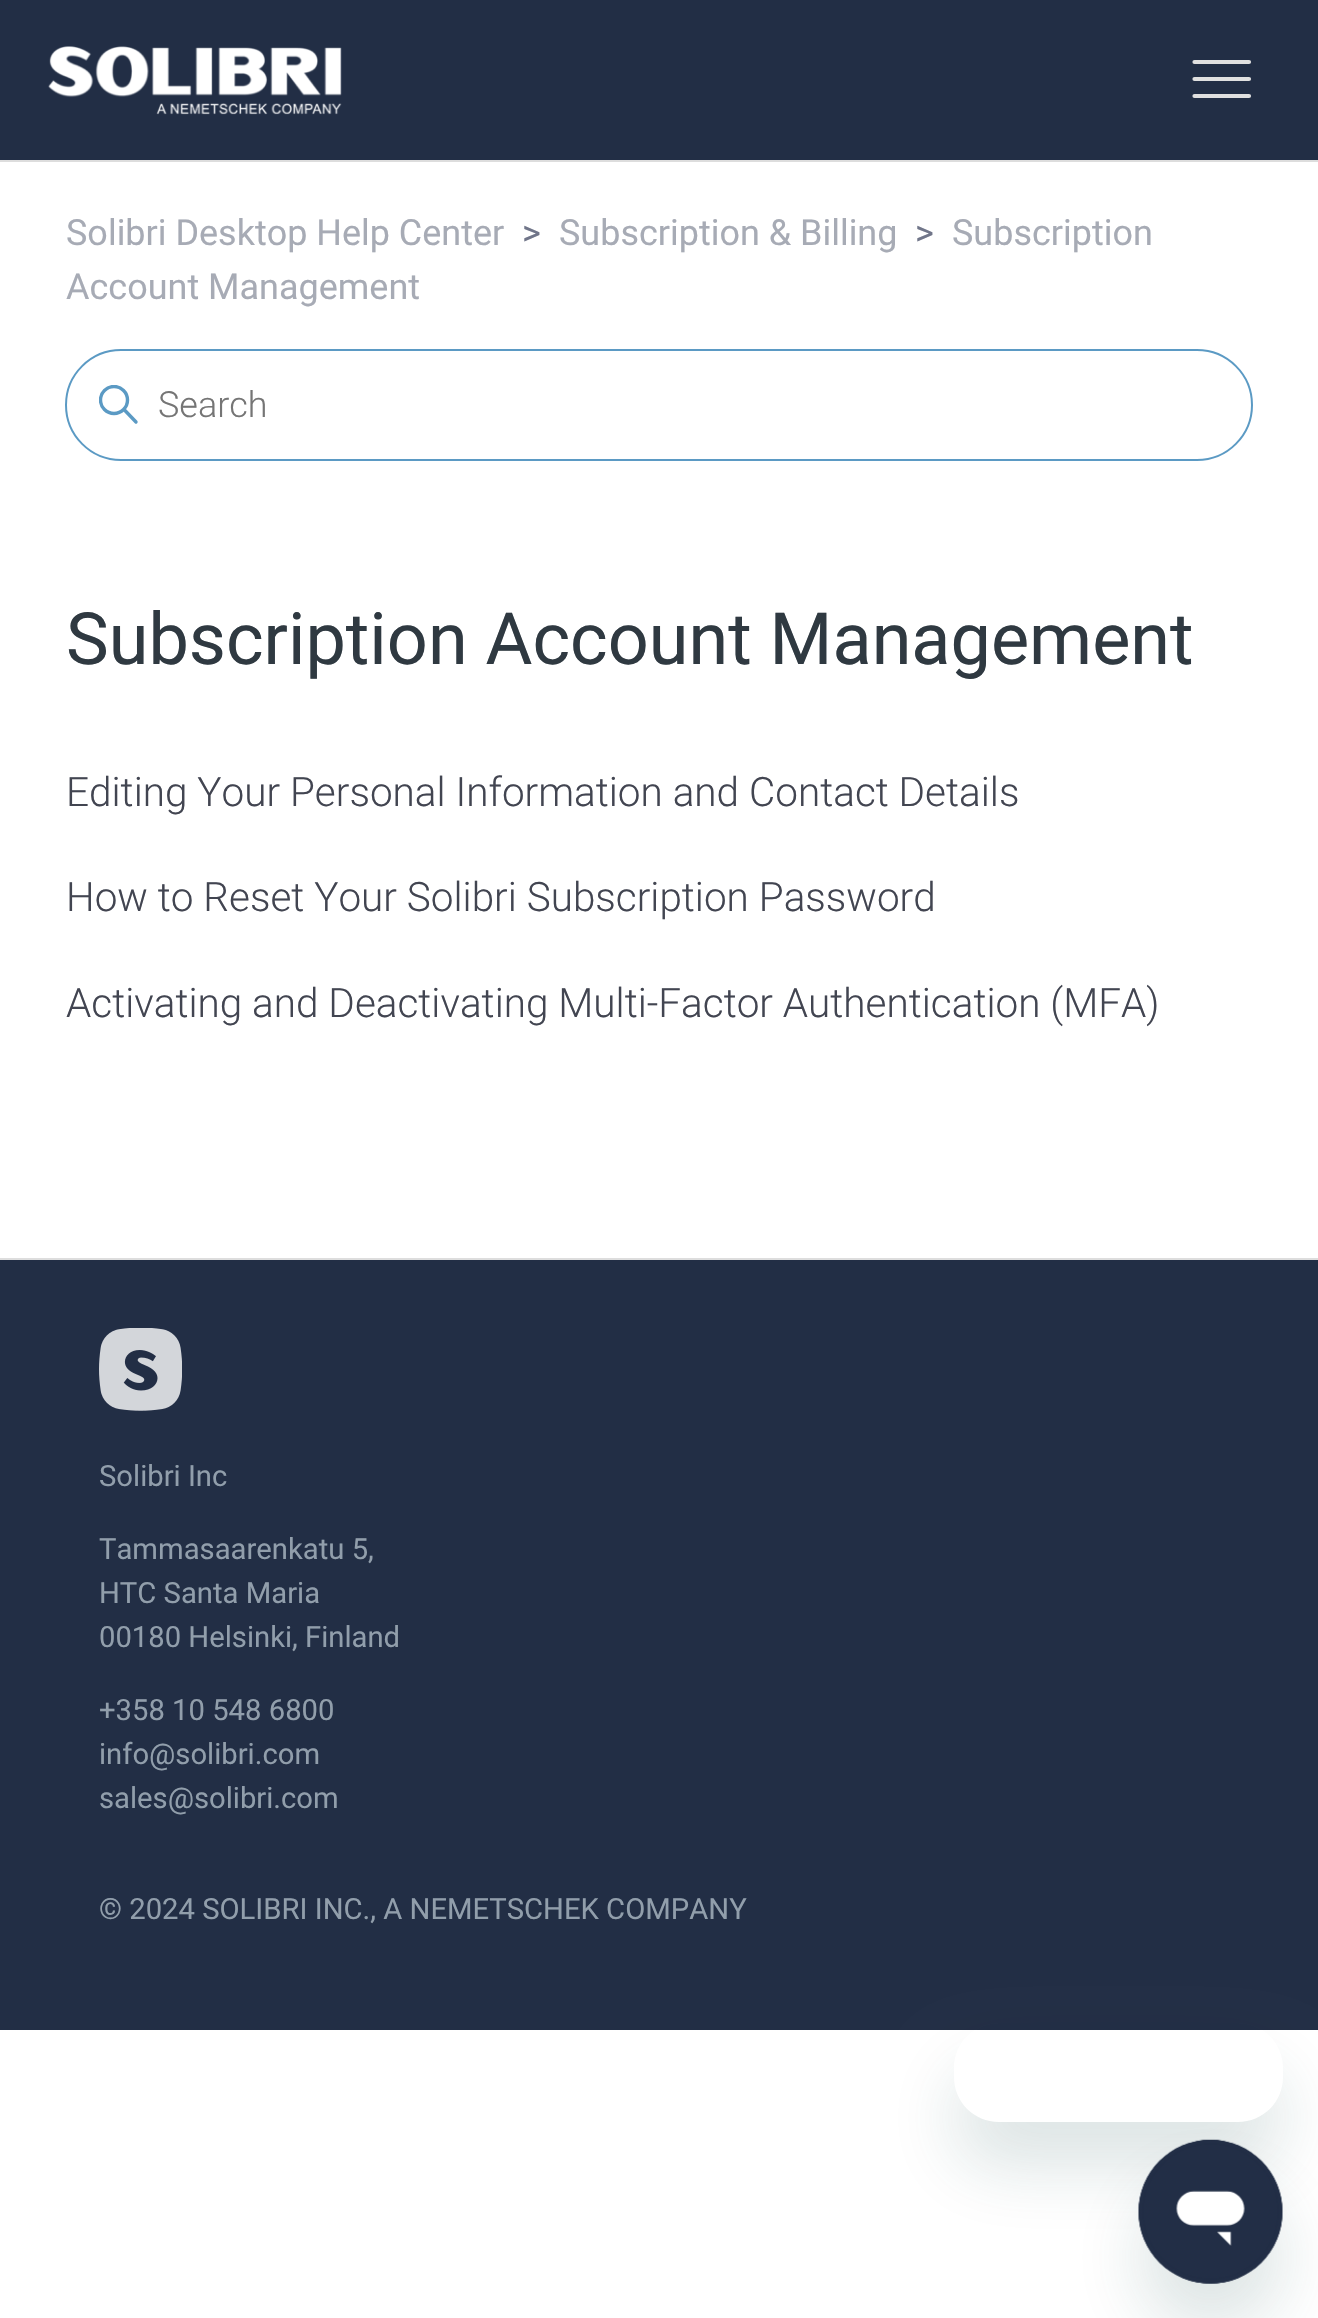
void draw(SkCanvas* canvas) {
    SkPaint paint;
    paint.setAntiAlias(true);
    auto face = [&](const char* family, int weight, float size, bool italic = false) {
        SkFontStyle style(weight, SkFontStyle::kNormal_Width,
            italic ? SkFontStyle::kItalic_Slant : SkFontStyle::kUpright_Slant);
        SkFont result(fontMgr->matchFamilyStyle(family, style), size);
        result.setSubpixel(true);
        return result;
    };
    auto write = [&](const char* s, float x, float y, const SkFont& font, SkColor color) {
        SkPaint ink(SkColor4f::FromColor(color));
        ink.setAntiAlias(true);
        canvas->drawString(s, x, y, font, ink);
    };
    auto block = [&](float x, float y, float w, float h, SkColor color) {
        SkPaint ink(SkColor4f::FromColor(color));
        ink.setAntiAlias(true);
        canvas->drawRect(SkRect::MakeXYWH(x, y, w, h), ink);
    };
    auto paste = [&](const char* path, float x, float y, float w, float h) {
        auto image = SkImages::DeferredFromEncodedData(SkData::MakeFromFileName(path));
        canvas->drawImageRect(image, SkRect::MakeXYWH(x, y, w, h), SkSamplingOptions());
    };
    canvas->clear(SK_ColorWHITE);
    block(0, 0, 1318, 160, SkColorSetRGB(34, 46, 69));
    paste("pic1.png", 48, 46, 294, 69);
    paint.setStyle(SkPaint::kStroke_Style);
    paint.setStrokeWidth(4.2f);
    paint.setStrokeCap(SkPaint::kRound_Cap);
    paint.setColor(SkColorSetRGB(224, 224, 224));
    canvas->drawPath(SkPathBuilder().moveTo(1194.5f, 62).lineTo(1249, 62).moveTo(1194.5f, 79).lineTo(1249, 79).moveTo(1194.5f, 96).lineTo(1249, 96).detach(), paint);
    block(0, 160, 1318, 2, SkColorSetRGB(221, 221, 221));
    auto kFont1 = face("Roboto", 400, 36);
    write("Solibri Desktop Help Center", 66, 245, kFont1, SkColorSetRGB(167, 171, 181));
    write(">", 522, 245, kFont1, SkColorSetRGB(112, 117, 137));
    write("Subscription & Billing", 559, 245, kFont1, SkColorSetRGB(167, 171, 181));
    write(">", 915, 245, kFont1, SkColorSetRGB(112, 117, 137));
    write("Subscription", 952, 245, kFont1, SkColorSetRGB(167, 171, 181));
    write("Account Management", 66, 299, kFont1, SkColorSetRGB(167, 171, 181));
    paint.setStrokeWidth(2);
    paint.setStrokeCap(SkPaint::kButt_Cap);
    paint.setColor(SkColorSetRGB(91, 154, 196));
    canvas->drawRoundRect(SkRect::MakeXYWH(66, 350, 1186, 110), 55, 55, paint);
    canvas->save();
    canvas->clipRect(SkRect::MakeXYWH(99, 385, 41, 40));
    paint.setStrokeWidth(3.4f);
    canvas->drawCircle(114, 400, 13.5f, paint);
    canvas->restore();
    paint.setStrokeCap(SkPaint::kRound_Cap);
    canvas->drawPath(SkPathBuilder().moveTo(136, 422).lineTo(124.5f, 410).detach(), paint);
    auto kFont2 = face("Roboto", 300, 36);
    write("Search", 158, 417, kFont2, SkColorSetRGB(117, 117, 117));
    auto kFont3 = face("Roboto", 400, 72);
    write("Subscription Account Management", 66, 664, kFont3, SkColorSetRGB(47, 57, 65));
    auto kFont4 = face("Roboto", 300, 40.5f);
    write("Editing Your Personal Information and Contact Details", 66, 806, kFont4, SkColorSetRGB(66, 69, 81));
    write("How to Reset Your Solibri Subscription Password", 66, 911, kFont4, SkColorSetRGB(66, 69, 81));
    write("Activating and Deactivating Multi-Factor Authentication (MFA)", 66, 1017, kFont4, SkColorSetRGB(66, 69, 81));
    block(0, 1260, 1318, 770, SkColorSetRGB(34, 46, 69));
    block(0, 1258, 1318, 2, SkColorSetRGB(221, 221, 221));
    paste("pic2.png", 99, 1328, 83, 83);
    auto kFont5 = face("Roboto", 400, 29.25f);
    write("Solibri Inc", 99, 1486, kFont5, SkColorSetRGB(145, 158, 171));
    write("Tammasaarenkatu 5,", 99, 1559, kFont5, SkColorSetRGB(145, 158, 171));
    write("HTC Santa Maria", 99, 1603, kFont5, SkColorSetRGB(145, 158, 171));
    write("00180 Helsinki, Finland", 99, 1647, kFont5, SkColorSetRGB(145, 158, 171));
    write("+358 10 548 6800", 99, 1720, kFont5, SkColorSetRGB(145, 158, 171));
    write("info@solibri.com", 99, 1764, kFont5, SkColorSetRGB(145, 158, 171));
    write("sales@solibri.com", 99, 1808, kFont5, SkColorSetRGB(145, 158, 171));
    write("© 2024 SOLIBRI INC., A NEMETSCHEK COMPANY", 99, 1919, kFont5, SkColorSetRGB(145, 158, 171));
    canvas->save();
    canvas->clipPath(SkPathBuilder(SkPathFillType::kEvenOdd).moveTo(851, 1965).lineTo(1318, 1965).lineTo(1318, 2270).lineTo(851, 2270).close().moveTo(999, 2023).lineTo(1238, 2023).cubicTo(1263, 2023, 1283, 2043, 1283, 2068).lineTo(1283, 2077).cubicTo(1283, 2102, 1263, 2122, 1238, 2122).lineTo(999, 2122).cubicTo(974, 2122, 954, 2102, 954, 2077).lineTo(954, 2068).cubicTo(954, 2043, 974, 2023, 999, 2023).close().detach(), true);
    paint.setStyle(SkPaint::kFill_Style);
    paint.setColor(SkColorSetARGB(38, 23, 73, 77));
    paint.setMaskFilter(SkMaskFilter::MakeBlur(kNormal_SkBlurStyle, 34));
    canvas->drawRoundRect(SkRect::MakeXYWH(954, 2068, 329, 99), 45, 45, paint);
    paint.setMaskFilter(nullptr);
    canvas->restore();
    paint.setMaskFilter(SkMaskFilter::MakeBlur(kNormal_SkBlurStyle, 34));
    canvas->drawRoundRect(SkRect::MakeXYWH(1139, 2185, 144, 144), 72, 72, paint);
    paint.setMaskFilter(nullptr);
    paste("pic3.png", 1138, 2139, 145, 145);
}
